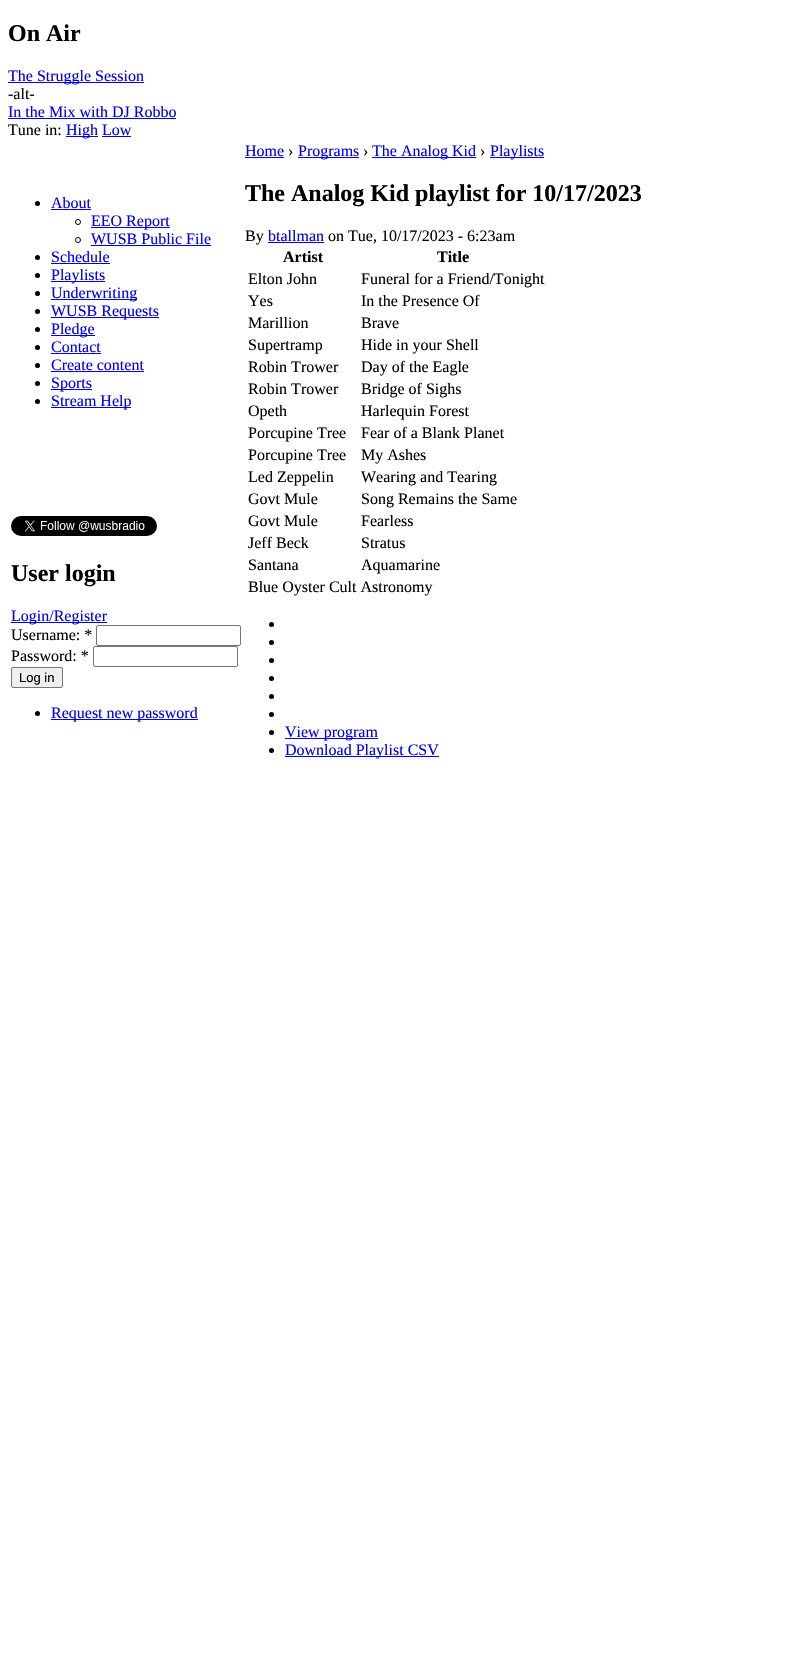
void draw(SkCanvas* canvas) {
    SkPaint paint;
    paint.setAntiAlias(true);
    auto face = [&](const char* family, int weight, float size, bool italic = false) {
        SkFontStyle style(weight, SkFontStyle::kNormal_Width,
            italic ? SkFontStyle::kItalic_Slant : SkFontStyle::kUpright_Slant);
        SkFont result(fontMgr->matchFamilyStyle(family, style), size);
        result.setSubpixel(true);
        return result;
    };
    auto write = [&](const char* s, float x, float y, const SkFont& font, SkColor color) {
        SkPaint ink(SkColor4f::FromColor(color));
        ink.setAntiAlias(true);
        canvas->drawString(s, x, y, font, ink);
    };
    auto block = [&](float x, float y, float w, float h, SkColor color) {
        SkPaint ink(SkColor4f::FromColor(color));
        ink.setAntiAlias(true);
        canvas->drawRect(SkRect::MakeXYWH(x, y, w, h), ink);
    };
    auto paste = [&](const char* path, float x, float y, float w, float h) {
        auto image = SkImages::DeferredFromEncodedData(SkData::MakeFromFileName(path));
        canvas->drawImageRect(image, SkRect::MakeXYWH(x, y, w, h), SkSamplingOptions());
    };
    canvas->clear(SK_ColorWHITE);
    auto kFont1 = face("Liberation Serif", 700, 24);
    write("On Air", 8, 41, kFont1, SK_ColorBLACK);
    block(8, 82, 136, 1, SkColorSetRGB(0, 0, 238));
    auto kFont2 = face("Liberation Serif", 400, 16);
    write("The Struggle Session", 8, 81, kFont2, SkColorSetRGB(0, 0, 238));
    write("-alt-", 8, 99, kFont2, SK_ColorBLACK);
    write("In the Mix with DJ Robbo", 8, 117, kFont2, SkColorSetRGB(0, 0, 238));
    block(8, 118, 168, 1, SkColorSetRGB(0, 0, 238));
    write("Tune in:", 8, 135, kFont2, SK_ColorBLACK);
    block(66, 136, 32, 1, SkColorSetRGB(0, 0, 238));
    write("High Low", 66, 135, kFont2, SkColorSetRGB(0, 0, 238));
    block(102, 136, 29, 1, SkColorSetRGB(0, 0, 238));
    paint.setColor(SK_ColorBLACK);
    canvas->drawCircle(37.5f, 203.5f, 2.5f, paint);
    write("About", 51, 208, kFont2, SkColorSetRGB(0, 0, 238));
    block(51, 209, 40, 1, SkColorSetRGB(0, 0, 238));
    paint.setStyle(SkPaint::kStroke_Style);
    paint.setStrokeWidth(1);
    canvas->drawCircle(78, 222, 2.5f, paint);
    block(91, 227, 79, 1, SkColorSetRGB(0, 0, 238));
    write("EEO Report", 91, 226, kFont2, SkColorSetRGB(0, 0, 238));
    canvas->drawCircle(78, 240, 2.5f, paint);
    write("WUSB Public File", 91, 244, kFont2, SkColorSetRGB(0, 0, 238));
    block(91, 245, 120, 1, SkColorSetRGB(0, 0, 238));
    paint.setStyle(SkPaint::kFill_Style);
    canvas->drawCircle(37.5f, 257.5f, 2.5f, paint);
    write("Schedule", 51, 262, kFont2, SkColorSetRGB(0, 0, 238));
    block(51, 263, 59, 1, SkColorSetRGB(0, 0, 238));
    canvas->drawCircle(37.5f, 275.5f, 2.5f, paint);
    block(51, 281, 54, 1, SkColorSetRGB(0, 0, 238));
    write("Playlists", 51, 280, kFont2, SkColorSetRGB(0, 0, 238));
    canvas->drawCircle(37.5f, 293.5f, 2.5f, paint);
    block(51, 299, 86, 1, SkColorSetRGB(0, 0, 238));
    write("Underwriting", 51, 298, kFont2, SkColorSetRGB(0, 0, 238));
    canvas->drawCircle(37.5f, 311.5f, 2.5f, paint);
    block(51, 317, 108, 1, SkColorSetRGB(0, 0, 238));
    write("WUSB Requests", 51, 316, kFont2, SkColorSetRGB(0, 0, 238));
    canvas->drawCircle(37.5f, 329.5f, 2.5f, paint);
    block(51, 335, 44, 1, SkColorSetRGB(0, 0, 238));
    write("Pledge", 51, 334, kFont2, SkColorSetRGB(0, 0, 238));
    canvas->drawCircle(37.5f, 347.5f, 2.5f, paint);
    write("Contact", 51, 352, kFont2, SkColorSetRGB(0, 0, 238));
    block(51, 353, 50, 1, SkColorSetRGB(0, 0, 238));
    canvas->drawCircle(37.5f, 365.5f, 2.5f, paint);
    write("Create content", 51, 370, kFont2, SkColorSetRGB(0, 0, 238));
    block(51, 371, 93, 1, SkColorSetRGB(0, 0, 238));
    canvas->drawCircle(37.5f, 383.5f, 2.5f, paint);
    block(51, 389, 41, 1, SkColorSetRGB(0, 0, 238));
    write("Sports", 51, 388, kFont2, SkColorSetRGB(0, 0, 238));
    canvas->drawCircle(37.5f, 401.5f, 2.5f, paint);
    block(51, 407, 80, 1, SkColorSetRGB(0, 0, 238));
    write("Stream Help", 51, 406, kFont2, SkColorSetRGB(0, 0, 238));
    paste("pic1.png", 11, 516, 146, 20);
    write("User login", 11, 581, kFont1, SK_ColorBLACK);
    block(11, 622, 96, 1, SkColorSetRGB(0, 0, 238));
    write("Login/Register", 11, 621, kFont2, SkColorSetRGB(0, 0, 238));
    write("Username: *", 11, 640, kFont2, SK_ColorBLACK);
    paint.setStyle(SkPaint::kStroke_Style);
    paint.setColor(SkColorSetRGB(118, 118, 118));
    canvas->drawRoundRect(SkRect::MakeXYWH(96.5f, 625.5f, 144, 20), 1.5f, 1.5f, paint);
    write("Password: *", 11, 661, kFont2, SK_ColorBLACK);
    canvas->drawRoundRect(SkRect::MakeXYWH(93.5f, 646.5f, 144, 20), 1.5f, 1.5f, paint);
    paint.setStyle(SkPaint::kFill_Style);
    paint.setColor(SkColorSetRGB(239, 239, 239));
    canvas->drawRoundRect(SkRect::MakeXYWH(11.5f, 667.5f, 51, 20), 1.5f, 1.5f, paint);
    paint.setStyle(SkPaint::kStroke_Style);
    paint.setColor(SkColorSetRGB(118, 118, 118));
    canvas->drawRoundRect(SkRect::MakeXYWH(11.5f, 667.5f, 51, 20), 1.5f, 1.5f, paint);
    auto kFont3 = face("Liberation Sans", 400, 13);
    write("Log in", 19, 682, kFont3, SK_ColorBLACK);
    paint.setStyle(SkPaint::kFill_Style);
    paint.setColor(SK_ColorBLACK);
    canvas->drawCircle(37.5f, 713.5f, 2.5f, paint);
    block(51, 719, 147, 1, SkColorSetRGB(0, 0, 238));
    write("Request new password", 51, 718, kFont2, SkColorSetRGB(0, 0, 238));
    write("Home", 245, 156, kFont2, SkColorSetRGB(0, 0, 238));
    block(245, 157, 39, 1, SkColorSetRGB(0, 0, 238));
    write("›", 288, 156, kFont2, SK_ColorBLACK);
    block(298, 157, 61, 1, SkColorSetRGB(0, 0, 238));
    write("Programs", 298, 156, kFont2, SkColorSetRGB(0, 0, 238));
    write("›", 363, 156, kFont2, SK_ColorBLACK);
    block(372, 157, 104, 1, SkColorSetRGB(0, 0, 238));
    write("The Analog Kid", 372, 156, kFont2, SkColorSetRGB(0, 0, 238));
    write("›", 480, 156, kFont2, SK_ColorBLACK);
    block(490, 157, 54, 1, SkColorSetRGB(0, 0, 238));
    write("Playlists", 490, 156, kFont2, SkColorSetRGB(0, 0, 238));
    write("The Analog Kid playlist for 10/17/2023", 245, 201, kFont1, SK_ColorBLACK);
    write("By", 245, 241, kFont2, SK_ColorBLACK);
    block(268, 242, 56, 1, SkColorSetRGB(0, 0, 238));
    write("btallman", 268, 241, kFont2, SkColorSetRGB(0, 0, 238));
    write("on Tue, 10/17/2023 - 6:23am", 328, 241, kFont2, SK_ColorBLACK);
    auto kFont4 = face("Liberation Serif", 700, 16);
    write("Artist", 283, 262, kFont4, SK_ColorBLACK);
    write("Title", 437, 262, kFont4, SK_ColorBLACK);
    write("Elton John", 248, 284, kFont2, SK_ColorBLACK);
    write("Funeral for a Friend/Tonight", 361, 284, kFont2, SK_ColorBLACK);
    write("Yes", 248, 306, kFont2, SK_ColorBLACK);
    write("In the Presence Of", 361, 306, kFont2, SK_ColorBLACK);
    write("Marillion", 248, 328, kFont2, SK_ColorBLACK);
    write("Brave", 361, 328, kFont2, SK_ColorBLACK);
    write("Supertramp", 248, 350, kFont2, SK_ColorBLACK);
    write("Hide in your Shell", 361, 350, kFont2, SK_ColorBLACK);
    write("Robin Trower", 248, 372, kFont2, SK_ColorBLACK);
    write("Day of the Eagle", 361, 372, kFont2, SK_ColorBLACK);
    write("Robin Trower", 248, 394, kFont2, SK_ColorBLACK);
    write("Bridge of Sighs", 361, 394, kFont2, SK_ColorBLACK);
    write("Opeth", 248, 416, kFont2, SK_ColorBLACK);
    write("Harlequin Forest", 361, 416, kFont2, SK_ColorBLACK);
    write("Porcupine Tree", 248, 438, kFont2, SK_ColorBLACK);
    write("Fear of a Blank Planet", 361, 438, kFont2, SK_ColorBLACK);
    write("Porcupine Tree", 248, 460, kFont2, SK_ColorBLACK);
    write("My Ashes", 361, 460, kFont2, SK_ColorBLACK);
    write("Led Zeppelin", 248, 482, kFont2, SK_ColorBLACK);
    write("Wearing and Tearing", 361, 482, kFont2, SK_ColorBLACK);
    write("Govt Mule", 248, 504, kFont2, SK_ColorBLACK);
    write("Song Remains the Same", 361, 504, kFont2, SK_ColorBLACK);
    write("Govt Mule", 248, 526, kFont2, SK_ColorBLACK);
    write("Fearless", 361, 526, kFont2, SK_ColorBLACK);
    write("Jeff Beck", 248, 548, kFont2, SK_ColorBLACK);
    write("Stratus", 361, 548, kFont2, SK_ColorBLACK);
    write("Santana", 248, 570, kFont2, SK_ColorBLACK);
    write("Aquamarine", 361, 570, kFont2, SK_ColorBLACK);
    write("Blue Oyster Cult Astronomy", 248, 592, kFont2, SK_ColorBLACK);
    canvas->drawCircle(271.5f, 624.5f, 2.5f, paint);
    canvas->drawCircle(271.5f, 642.5f, 2.5f, paint);
    canvas->drawCircle(271.5f, 660.5f, 2.5f, paint);
    canvas->drawCircle(271.5f, 678.5f, 2.5f, paint);
    canvas->drawCircle(271.5f, 696.5f, 2.5f, paint);
    canvas->drawCircle(271.5f, 714.5f, 2.5f, paint);
    canvas->drawCircle(271.5f, 732.5f, 2.5f, paint);
    block(285, 738, 93, 1, SkColorSetRGB(0, 0, 238));
    write("View program", 285, 737, kFont2, SkColorSetRGB(0, 0, 238));
    canvas->drawCircle(271.5f, 750.5f, 2.5f, paint);
    block(285, 756, 154, 1, SkColorSetRGB(0, 0, 238));
    write("Download Playlist CSV", 285, 755, kFont2, SkColorSetRGB(0, 0, 238));
}
